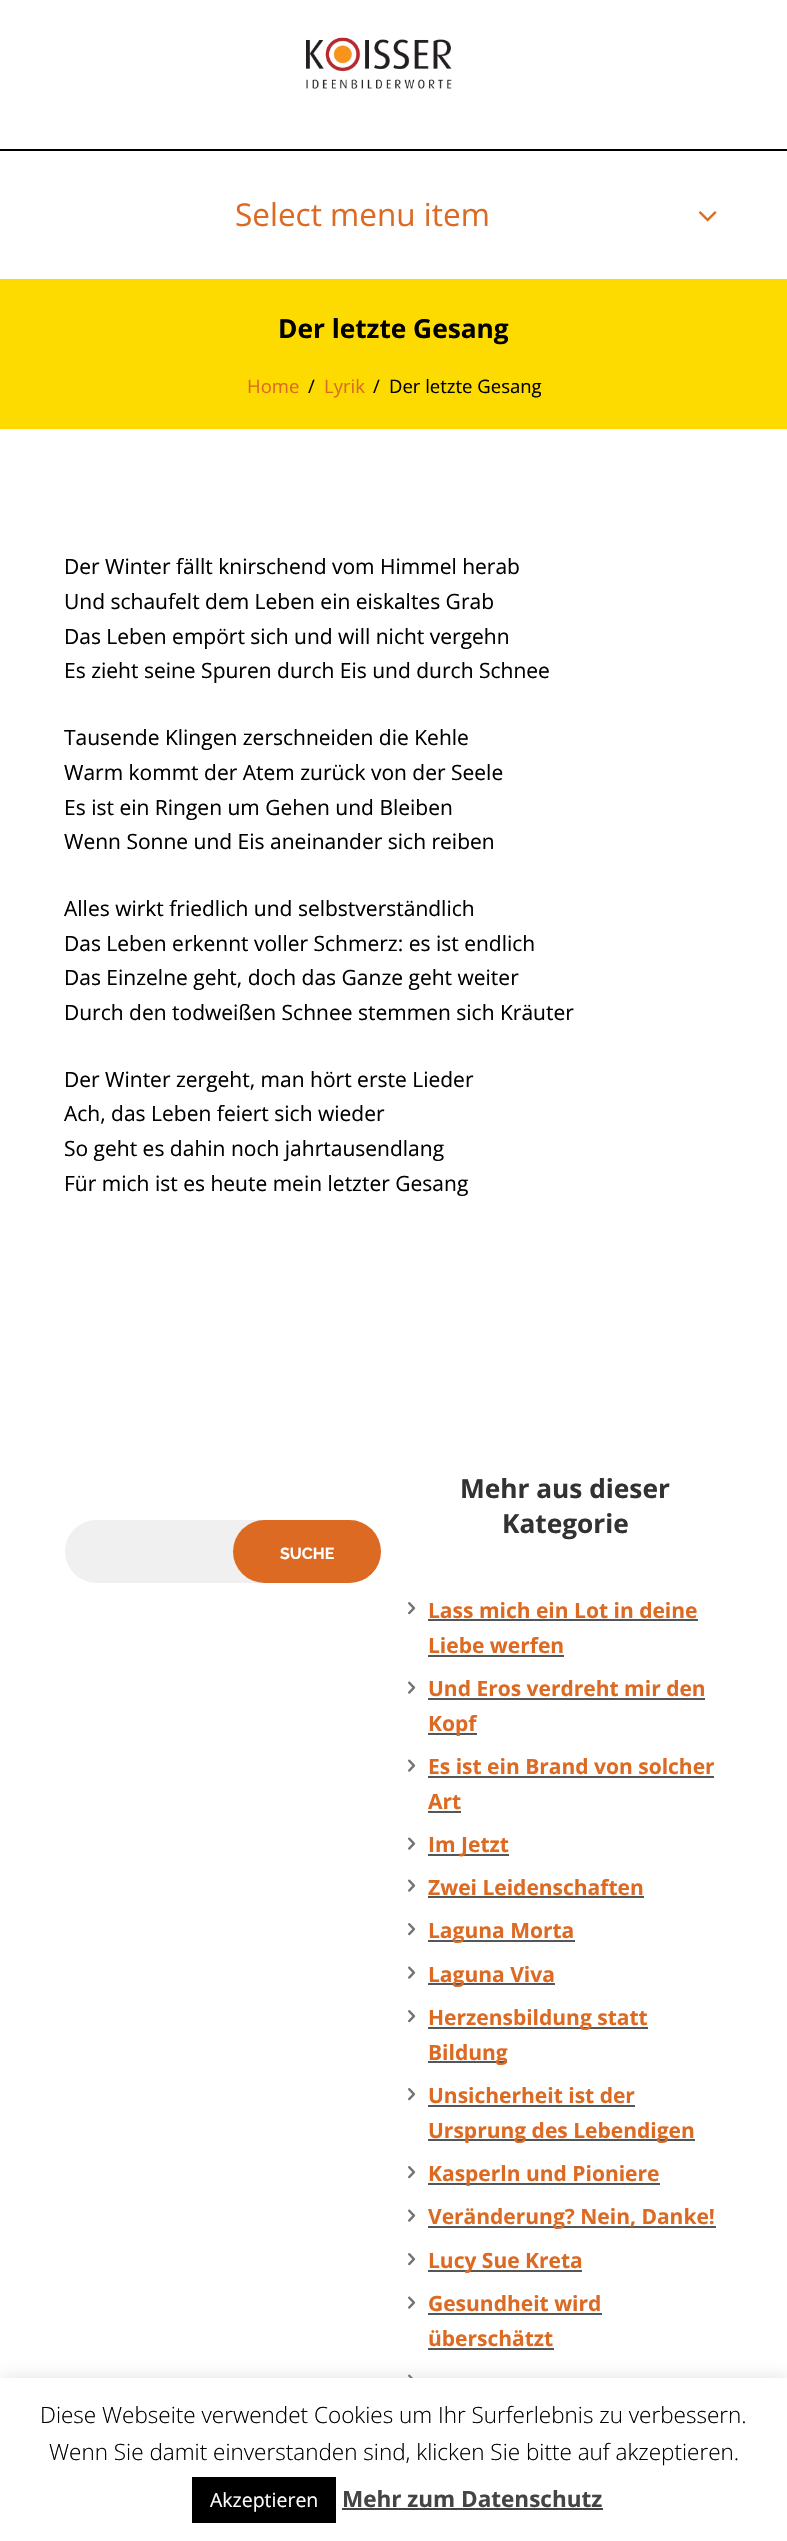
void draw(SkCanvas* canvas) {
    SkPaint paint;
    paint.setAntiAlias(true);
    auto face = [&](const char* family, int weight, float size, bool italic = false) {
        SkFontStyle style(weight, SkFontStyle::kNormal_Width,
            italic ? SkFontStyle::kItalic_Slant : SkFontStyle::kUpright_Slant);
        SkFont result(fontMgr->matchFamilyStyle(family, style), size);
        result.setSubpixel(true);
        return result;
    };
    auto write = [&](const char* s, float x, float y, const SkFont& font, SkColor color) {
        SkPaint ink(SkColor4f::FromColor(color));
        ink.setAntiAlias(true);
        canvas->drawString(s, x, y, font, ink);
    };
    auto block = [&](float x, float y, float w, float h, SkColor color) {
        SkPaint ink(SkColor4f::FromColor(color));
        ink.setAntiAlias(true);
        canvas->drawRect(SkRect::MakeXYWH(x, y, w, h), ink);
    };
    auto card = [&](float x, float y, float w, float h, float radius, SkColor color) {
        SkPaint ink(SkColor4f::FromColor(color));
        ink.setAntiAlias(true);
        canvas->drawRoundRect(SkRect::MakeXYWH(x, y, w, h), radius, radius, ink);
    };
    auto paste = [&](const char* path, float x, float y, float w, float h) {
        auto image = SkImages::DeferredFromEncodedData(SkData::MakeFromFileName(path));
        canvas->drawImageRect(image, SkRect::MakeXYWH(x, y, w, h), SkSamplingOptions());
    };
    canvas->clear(SK_ColorWHITE);
    paste("pic1.png", 306, 37, 146, 52);
    block(0, 149, 787, 2, SK_ColorBLACK);
    auto kFont1 = face("Open Sans", 400, 31.5f);
    write("Select menu item", 235, 226, kFont1, SkColorSetRGB(220, 106, 35));
    paste("pic2.png", 698, 211, 19, 11);
    block(0, 279, 787, 150, SkColorSetRGB(253, 219, 0));
    auto kFont2 = face("Open Sans", 700, 26.25f);
    write("Der letzte Gesang", 278, 338, kFont2, SK_ColorBLACK);
    auto kFont3 = face("Open Sans", 400, 18.5f);
    write("Home", 247, 393, kFont3, SkColorSetRGB(220, 106, 35));
    write("/", 308, 393, kFont3, SK_ColorBLACK);
    write("Lyrik", 324, 393, kFont3, SkColorSetRGB(220, 106, 35));
    write("/", 373, 393, kFont3, SK_ColorBLACK);
    write("Der letzte Gesang", 389, 393, kFont3, SK_ColorBLACK);
    auto kFont4 = face("Open Sans", 400, 21);
    write("Der Winter fällt knirschend vom Himmel herab", 64, 574, kFont4, SK_ColorBLACK);
    write("Und schaufelt dem Leben ein eiskaltes Grab", 64, 609, kFont4, SK_ColorBLACK);
    write("Das Leben empört sich und will nicht vergehn", 64, 644, kFont4, SK_ColorBLACK);
    write("Es zieht seine Spuren durch Eis und durch Schnee", 64, 678, kFont4, SK_ColorBLACK);
    write("Tausende Klingen zerschneiden die Kehle", 64, 745, kFont4, SK_ColorBLACK);
    write("Warm kommt der Atem zurück von der Seele", 64, 780, kFont4, SK_ColorBLACK);
    write("Es ist ein Ringen um Gehen und Bleiben", 64, 815, kFont4, SK_ColorBLACK);
    write("Wenn Sonne und Eis aneinander sich reiben", 64, 849, kFont4, SK_ColorBLACK);
    write("Alles wirkt friedlich und selbstverständlich", 64, 916, kFont4, SK_ColorBLACK);
    write("Das Leben erkennt voller Schmerz: es ist endlich", 64, 951, kFont4, SK_ColorBLACK);
    write("Das Einzelne geht, doch das Ganze geht weiter", 64, 985, kFont4, SK_ColorBLACK);
    write("Durch den todweißen Schnee stemmen sich Kräuter", 64, 1020, kFont4, SK_ColorBLACK);
    write("Der Winter zergeht, man hört erste Lieder", 64, 1087, kFont4, SK_ColorBLACK);
    write("Ach, das Leben feiert sich wieder", 64, 1121, kFont4, SK_ColorBLACK);
    write("So geht es dahin noch jahrtausendlang", 64, 1156, kFont4, SK_ColorBLACK);
    write("Für mich ist es heute mein letzter Gesang", 64, 1191, kFont4, SK_ColorBLACK);
    card(65, 1520, 316, 63, 31.5f, SkColorSetRGB(240, 240, 240));
    card(233, 1520, 148, 63, 31.5f, SkColorSetRGB(220, 106, 35));
    auto kFont5 = face("Raleway", 700, 16);
    write("SUCHE", 280, 1559, kFont5, SK_ColorWHITE);
    write("Mehr aus dieser", 460, 1498, kFont2, SkColorSetRGB(50, 50, 50));
    write("Kategorie", 502, 1533, kFont2, SkColorSetRGB(50, 50, 50));
    paste("pic3.png", 408, 1602, 8, 13);
    auto kFont6 = face("Open Sans", 700, 21);
    write("Lass mich ein Lot in deine", 428, 1618, kFont6, SkColorSetRGB(220, 106, 35));
    block(428, 1619, 270, 2, SkColorSetRGB(84, 86, 87));
    write("Liebe werfen", 428, 1653, kFont6, SkColorSetRGB(220, 106, 35));
    block(428, 1655, 136, 2, SkColorSetRGB(84, 86, 87));
    paste("pic4.png", 408, 1681, 8, 13);
    write("Und Eros verdreht mir den", 428, 1696, kFont6, SkColorSetRGB(220, 106, 35));
    block(428, 1698, 277, 2, SkColorSetRGB(84, 86, 87));
    block(428, 1733, 49, 2, SkColorSetRGB(84, 86, 87));
    write("Kopf", 428, 1731, kFont6, SkColorSetRGB(220, 106, 35));
    paste("pic4.png", 408, 1759, 8, 13);
    write("Es ist ein Brand von solcher", 428, 1774, kFont6, SkColorSetRGB(220, 106, 35));
    block(428, 1776, 286, 2, SkColorSetRGB(84, 86, 87));
    write("Art", 428, 1809, kFont6, SkColorSetRGB(220, 106, 35));
    block(428, 1811, 33, 2, SkColorSetRGB(84, 86, 87));
    paste("pic4.png", 408, 1837, 8, 13);
    block(428, 1854, 81, 2, SkColorSetRGB(84, 86, 87));
    write("Im Jetzt", 428, 1852, kFont6, SkColorSetRGB(220, 106, 35));
    paste("pic4.png", 408, 1879, 8, 13);
    write("Zwei Leidenschaften", 428, 1895, kFont6, SkColorSetRGB(220, 106, 35));
    block(428, 1896, 216, 2, SkColorSetRGB(84, 86, 87));
    paste("pic3.png", 408, 1923, 8, 13);
    block(428, 1940, 147, 2, SkColorSetRGB(84, 86, 87));
    write("Laguna Morta", 428, 1938, kFont6, SkColorSetRGB(220, 106, 35));
    paste("pic4.png", 408, 1966, 8, 13);
    block(428, 1983, 127, 2, SkColorSetRGB(84, 86, 87));
    write("Laguna Viva", 428, 1982, kFont6, SkColorSetRGB(220, 106, 35));
    paste("pic3.png", 408, 2010, 8, 13);
    block(428, 2027, 220, 2, SkColorSetRGB(84, 86, 87));
    write("Herzensbildung statt", 428, 2025, kFont6, SkColorSetRGB(220, 106, 35));
    block(428, 2061, 79, 2, SkColorSetRGB(84, 86, 87));
    write("Bildung", 428, 2060, kFont6, SkColorSetRGB(220, 106, 35));
    paste("pic3.png", 408, 2088, 8, 13);
    write("Unsicherheit ist der", 428, 2103, kFont6, SkColorSetRGB(220, 106, 35));
    block(428, 2105, 207, 2, SkColorSetRGB(84, 86, 87));
    block(428, 2139, 267, 2, SkColorSetRGB(84, 86, 87));
    write("Ursprung des Lebendigen", 428, 2138, kFont6, SkColorSetRGB(220, 106, 35));
    paste("pic3.png", 408, 2166, 8, 13);
    block(428, 2183, 232, 2, SkColorSetRGB(84, 86, 87));
    write("Kasperln und Pioniere", 428, 2181, kFont6, SkColorSetRGB(220, 106, 35));
    paste("pic4.png", 408, 2209, 8, 13);
    block(428, 2226, 288, 2, SkColorSetRGB(84, 86, 87));
    write("Veränderung? Nein, Danke!", 428, 2224, kFont6, SkColorSetRGB(220, 106, 35));
    paste("pic3.png", 408, 2253, 8, 13);
    block(428, 2270, 154, 2, SkColorSetRGB(84, 86, 87));
    write("Lucy Sue Kreta", 428, 2268, kFont6, SkColorSetRGB(220, 106, 35));
    paste("pic4.png", 408, 2296, 8, 13);
    write("Gesundheit wird", 428, 2311, kFont6, SkColorSetRGB(220, 106, 35));
    block(428, 2313, 174, 2, SkColorSetRGB(84, 86, 87));
    write("überschätzt", 428, 2346, kFont6, SkColorSetRGB(220, 106, 35));
    block(428, 2348, 126, 2, SkColorSetRGB(84, 86, 87));
    paste("pic5.png", 408, 2374, 5, 4);
    paint.setColor(SkColorSetARGB(77, 172, 171, 171));
    paint.setMaskFilter(SkMaskFilter::MakeBlur(kNormal_SkBlurStyle, 7.5f));
    canvas->drawRect(SkRect::MakeXYWH(0, 2376, 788, 164), paint);
    paint.setMaskFilter(nullptr);
    block(0, 2378, 787, 163, SK_ColorWHITE);
    auto kFont7 = face("Open Sans", 300, 22.5f);
    write("Diese Webseite verwendet Cookies um Ihr Surferlebnis zu verbessern.", 40, 2423, kFont7, SK_ColorBLACK);
    write("Wenn Sie damit einverstanden sind, klicken Sie bitte auf akzeptieren.", 49, 2460, kFont7, SK_ColorBLACK);
    block(192, 2477, 144, 46, SK_ColorBLACK);
    auto kFont8 = face("Open Sans", 400, 19.5f);
    write("Akzeptieren", 210, 2507, kFont8, SK_ColorWHITE);
    auto kFont9 = face("Open Sans", 700, 22.5f);
    write("Mehr zum Datenschutz", 342, 2507, kFont9, SkColorSetRGB(68, 68, 68));
    block(342, 2508, 261, 2, SkColorSetRGB(68, 68, 68));
}
